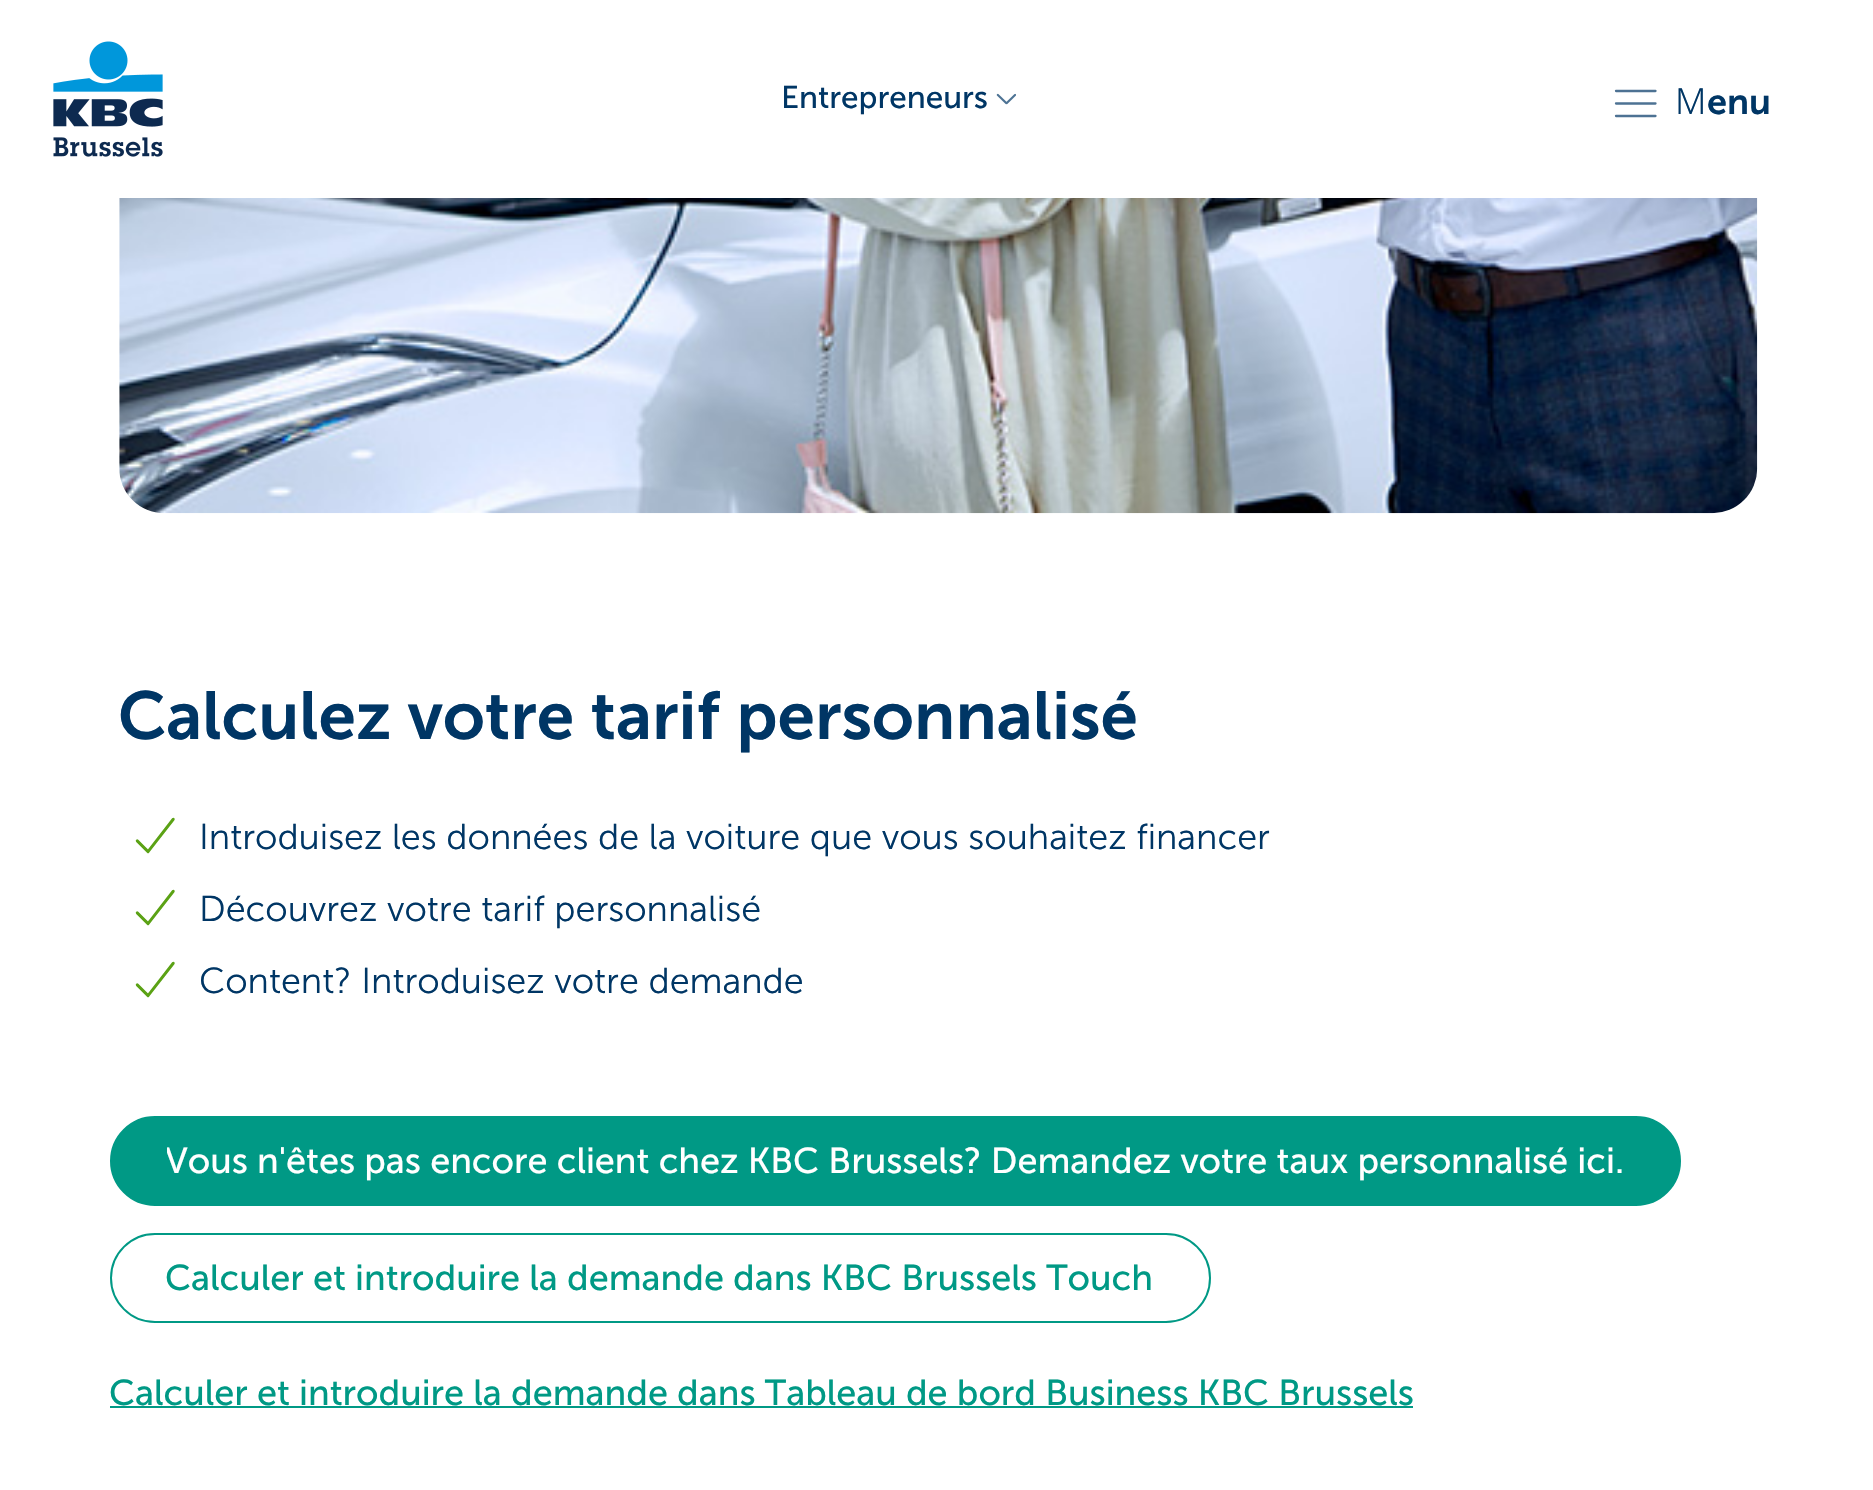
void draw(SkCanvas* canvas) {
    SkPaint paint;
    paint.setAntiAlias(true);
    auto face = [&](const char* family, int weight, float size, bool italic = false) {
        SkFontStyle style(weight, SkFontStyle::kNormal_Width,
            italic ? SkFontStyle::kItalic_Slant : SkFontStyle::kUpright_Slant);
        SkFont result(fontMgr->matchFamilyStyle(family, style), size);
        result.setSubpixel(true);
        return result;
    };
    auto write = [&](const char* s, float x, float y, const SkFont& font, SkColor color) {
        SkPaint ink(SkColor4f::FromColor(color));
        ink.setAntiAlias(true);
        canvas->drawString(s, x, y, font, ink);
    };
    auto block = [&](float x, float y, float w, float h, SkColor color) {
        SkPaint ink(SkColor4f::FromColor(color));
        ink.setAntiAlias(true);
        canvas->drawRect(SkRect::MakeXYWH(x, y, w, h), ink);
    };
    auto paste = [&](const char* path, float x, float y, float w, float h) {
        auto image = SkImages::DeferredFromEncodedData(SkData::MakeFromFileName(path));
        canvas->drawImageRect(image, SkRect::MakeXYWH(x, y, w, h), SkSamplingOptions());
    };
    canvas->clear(SK_ColorWHITE);
    paste("pic1.png", 53, 41, 110, 116);
    auto kFont1 = face("Museo Sans", 400, 31.5f);
    write("Entrepreneurs", 781, 108, kFont1, SkColorSetRGB(0, 54, 101));
    paste("pic2.png", 996, 93, 20, 12);
    paint.setStyle(SkPaint::kStroke_Style);
    paint.setStrokeWidth(2.3f);
    paint.setStrokeCap(SkPaint::kRound_Cap);
    paint.setStrokeJoin(SkPaint::kRound_Join);
    paint.setColor(SkColorSetRGB(77, 114, 147));
    canvas->drawPath(SkPathBuilder().moveTo(1616, 103.5f).lineTo(1655.5f, 103.5f).moveTo(1616, 91).lineTo(1655.5f, 91).moveTo(1616, 116).lineTo(1655.5f, 116).detach(), paint);
    auto kFont2 = face("Noto Sans", 300, 36);
    write("M", 1675, 114, kFont2, SkColorSetRGB(0, 54, 101));
    auto kFont3 = face("Museo Sans", 600, 36);
    write("enu", 1707, 114, kFont3, SkColorSetRGB(0, 54, 101));
    paste("pic3.png", 119, 198, 1639, 316);
    auto kFont4 = face("Museo Sans", 600, 67.5f);
    write("Calculez votre tarif personnalisé", 118, 739, kFont4, SkColorSetRGB(0, 54, 101));
    paste("pic4.png", 135, 817, 40, 37);
    auto kFont5 = face("Museo Sans", 300, 36);
    write("Introduisez les données de la voiture que vous souhaitez financer", 199, 849, kFont5, SkColorSetRGB(0, 54, 101));
    paste("pic4.png", 135, 889, 40, 37);
    write("Découvrez votre tarif personnalisé", 199, 921, kFont5, SkColorSetRGB(0, 54, 101));
    paste("pic4.png", 135, 961, 40, 37);
    write("Content? Introduisez votre demande", 199, 993, kFont5, SkColorSetRGB(0, 54, 101));
    paint.setStyle(SkPaint::kFill_Style);
    paint.setColor(SkColorSetRGB(0, 153, 133));
    canvas->drawRoundRect(SkRect::MakeXYWH(111, 1117, 1569, 88), 44, 44, paint);
    paint.setStyle(SkPaint::kStroke_Style);
    paint.setStrokeWidth(2);
    paint.setStrokeCap(SkPaint::kButt_Cap);
    paint.setStrokeJoin(SkPaint::kMiter_Join);
    canvas->drawRoundRect(SkRect::MakeXYWH(111, 1117, 1569, 88), 44, 44, paint);
    canvas->save();
    canvas->clipRect(SkRect::MakeXYWH(167, 1118, 1458, 86));
    auto kFont6 = face("Museo Sans", 400, 36);
    write("Vous n'êtes pas encore client chez KBC Brussels? Demandez votre taux personnalisé ici.", 165, 1173, kFont6, SK_ColorWHITE);
    canvas->restore();
    canvas->drawRoundRect(SkRect::MakeXYWH(111, 1234, 1099, 88), 44, 44, paint);
    write("Calculer et introduire la demande dans KBC Brussels Touch", 165, 1290, kFont6, SkColorSetRGB(0, 153, 133));
    write("Calculer et introduire la demande dans Tableau de bord Business KBC Brussels", 109, 1405, kFont6, SkColorSetRGB(0, 153, 133));
    block(110, 1406, 1303, 2, SkColorSetRGB(0, 153, 133));
}
